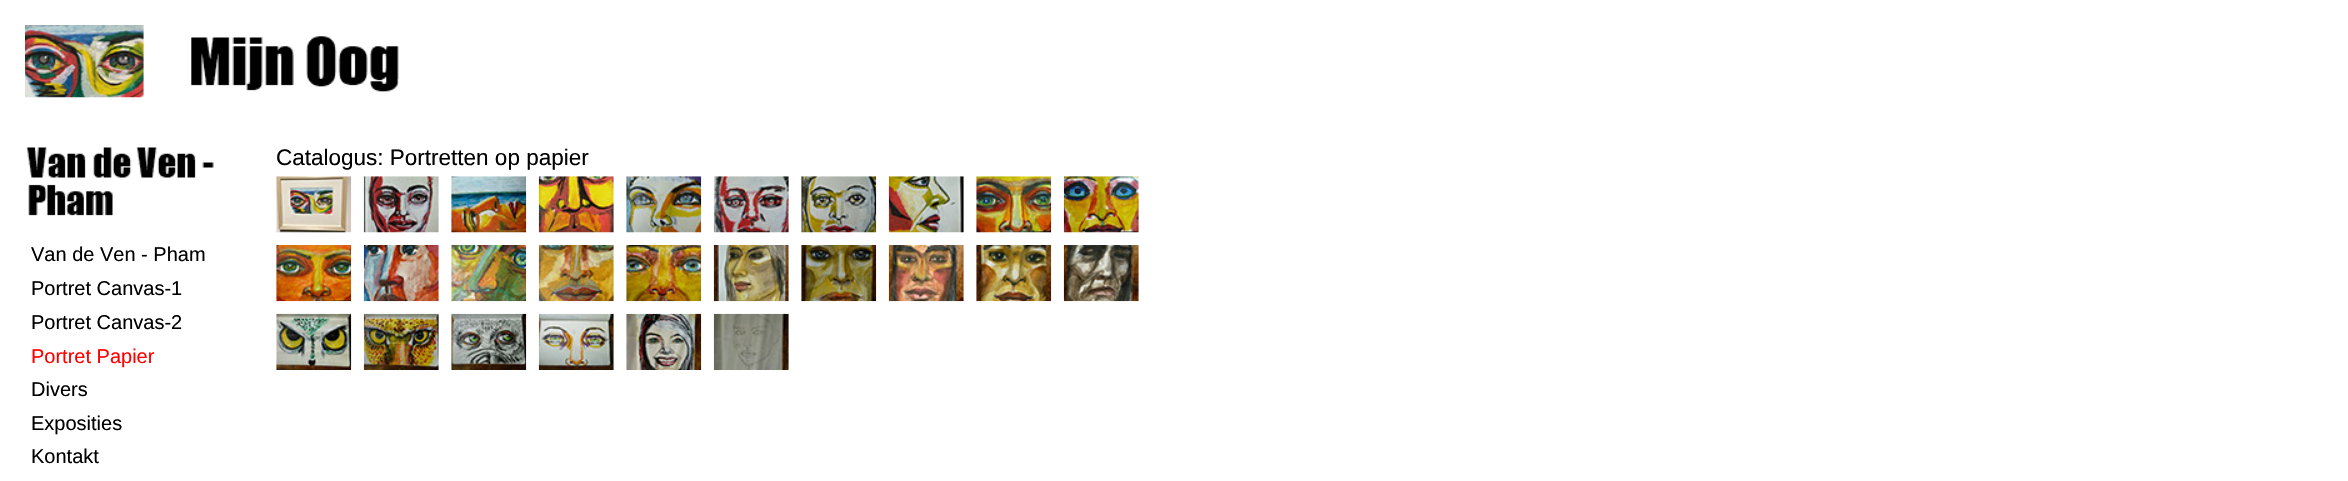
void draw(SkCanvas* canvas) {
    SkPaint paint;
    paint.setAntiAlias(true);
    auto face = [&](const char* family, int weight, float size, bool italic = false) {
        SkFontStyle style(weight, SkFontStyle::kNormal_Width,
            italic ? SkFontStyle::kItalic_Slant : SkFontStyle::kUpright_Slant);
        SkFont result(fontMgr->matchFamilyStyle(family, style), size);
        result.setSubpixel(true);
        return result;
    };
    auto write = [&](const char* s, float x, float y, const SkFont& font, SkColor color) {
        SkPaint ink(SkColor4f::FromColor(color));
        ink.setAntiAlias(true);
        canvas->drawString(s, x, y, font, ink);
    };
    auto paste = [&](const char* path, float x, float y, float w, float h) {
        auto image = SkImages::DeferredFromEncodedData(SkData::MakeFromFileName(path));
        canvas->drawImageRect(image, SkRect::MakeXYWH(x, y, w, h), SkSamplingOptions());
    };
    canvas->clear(SK_ColorWHITE);
    paste("pic1.png", 25, 25, 119, 73);
    paste("pic2.png", 191, 36, 208, 56);
    paste("pic3.png", 26, 147, 188, 69);
    auto kFont1 = face("Liberation Sans", 400, 22.5f);
    write("Catalogus: Portretten op papier", 276, 165, kFont1, SK_ColorBLACK);
    paste("pic4.png", 276, 176, 76, 57);
    paste("pic5.png", 363, 176, 76, 57);
    paste("pic6.png", 451, 176, 76, 57);
    paste("pic7.png", 538, 176, 76, 57);
    paste("pic8.png", 626, 176, 76, 57);
    paste("pic9.png", 713, 176, 76, 57);
    paste("pic10.png", 801, 176, 76, 57);
    paste("pic11.png", 888, 176, 76, 57);
    paste("pic12.png", 976, 176, 76, 57);
    paste("pic13.png", 1063, 176, 76, 57);
    paste("pic14.png", 276, 245, 76, 57);
    paste("pic15.png", 363, 245, 76, 57);
    paste("pic16.png", 451, 245, 76, 57);
    paste("pic17.png", 538, 245, 76, 57);
    paste("pic18.png", 626, 245, 76, 57);
    paste("pic19.png", 713, 245, 76, 57);
    paste("pic20.png", 801, 245, 76, 57);
    paste("pic21.png", 888, 245, 76, 57);
    paste("pic22.png", 976, 245, 76, 57);
    paste("pic23.png", 1063, 245, 76, 57);
    paste("pic24.png", 276, 313, 76, 57);
    paste("pic25.png", 363, 313, 76, 57);
    paste("pic26.png", 451, 313, 76, 57);
    paste("pic27.png", 538, 313, 76, 57);
    paste("pic28.png", 626, 313, 76, 57);
    paste("pic29.png", 713, 313, 76, 57);
    auto kFont2 = face("Liberation Sans", 400, 20);
    write("Van de Ven - Pham", 31, 261, kFont2, SK_ColorBLACK);
    write("Portret Canvas-1", 31, 295, kFont2, SK_ColorBLACK);
    write("Portret Canvas-2", 31, 329, kFont2, SK_ColorBLACK);
    write("Portret Papier", 31, 363, kFont2, SkColorSetRGB(255, 0, 0));
    write("Divers", 31, 396, kFont2, SK_ColorBLACK);
    write("Exposities", 31, 430, kFont2, SK_ColorBLACK);
    write("Kontakt", 31, 463, kFont2, SK_ColorBLACK);
}
